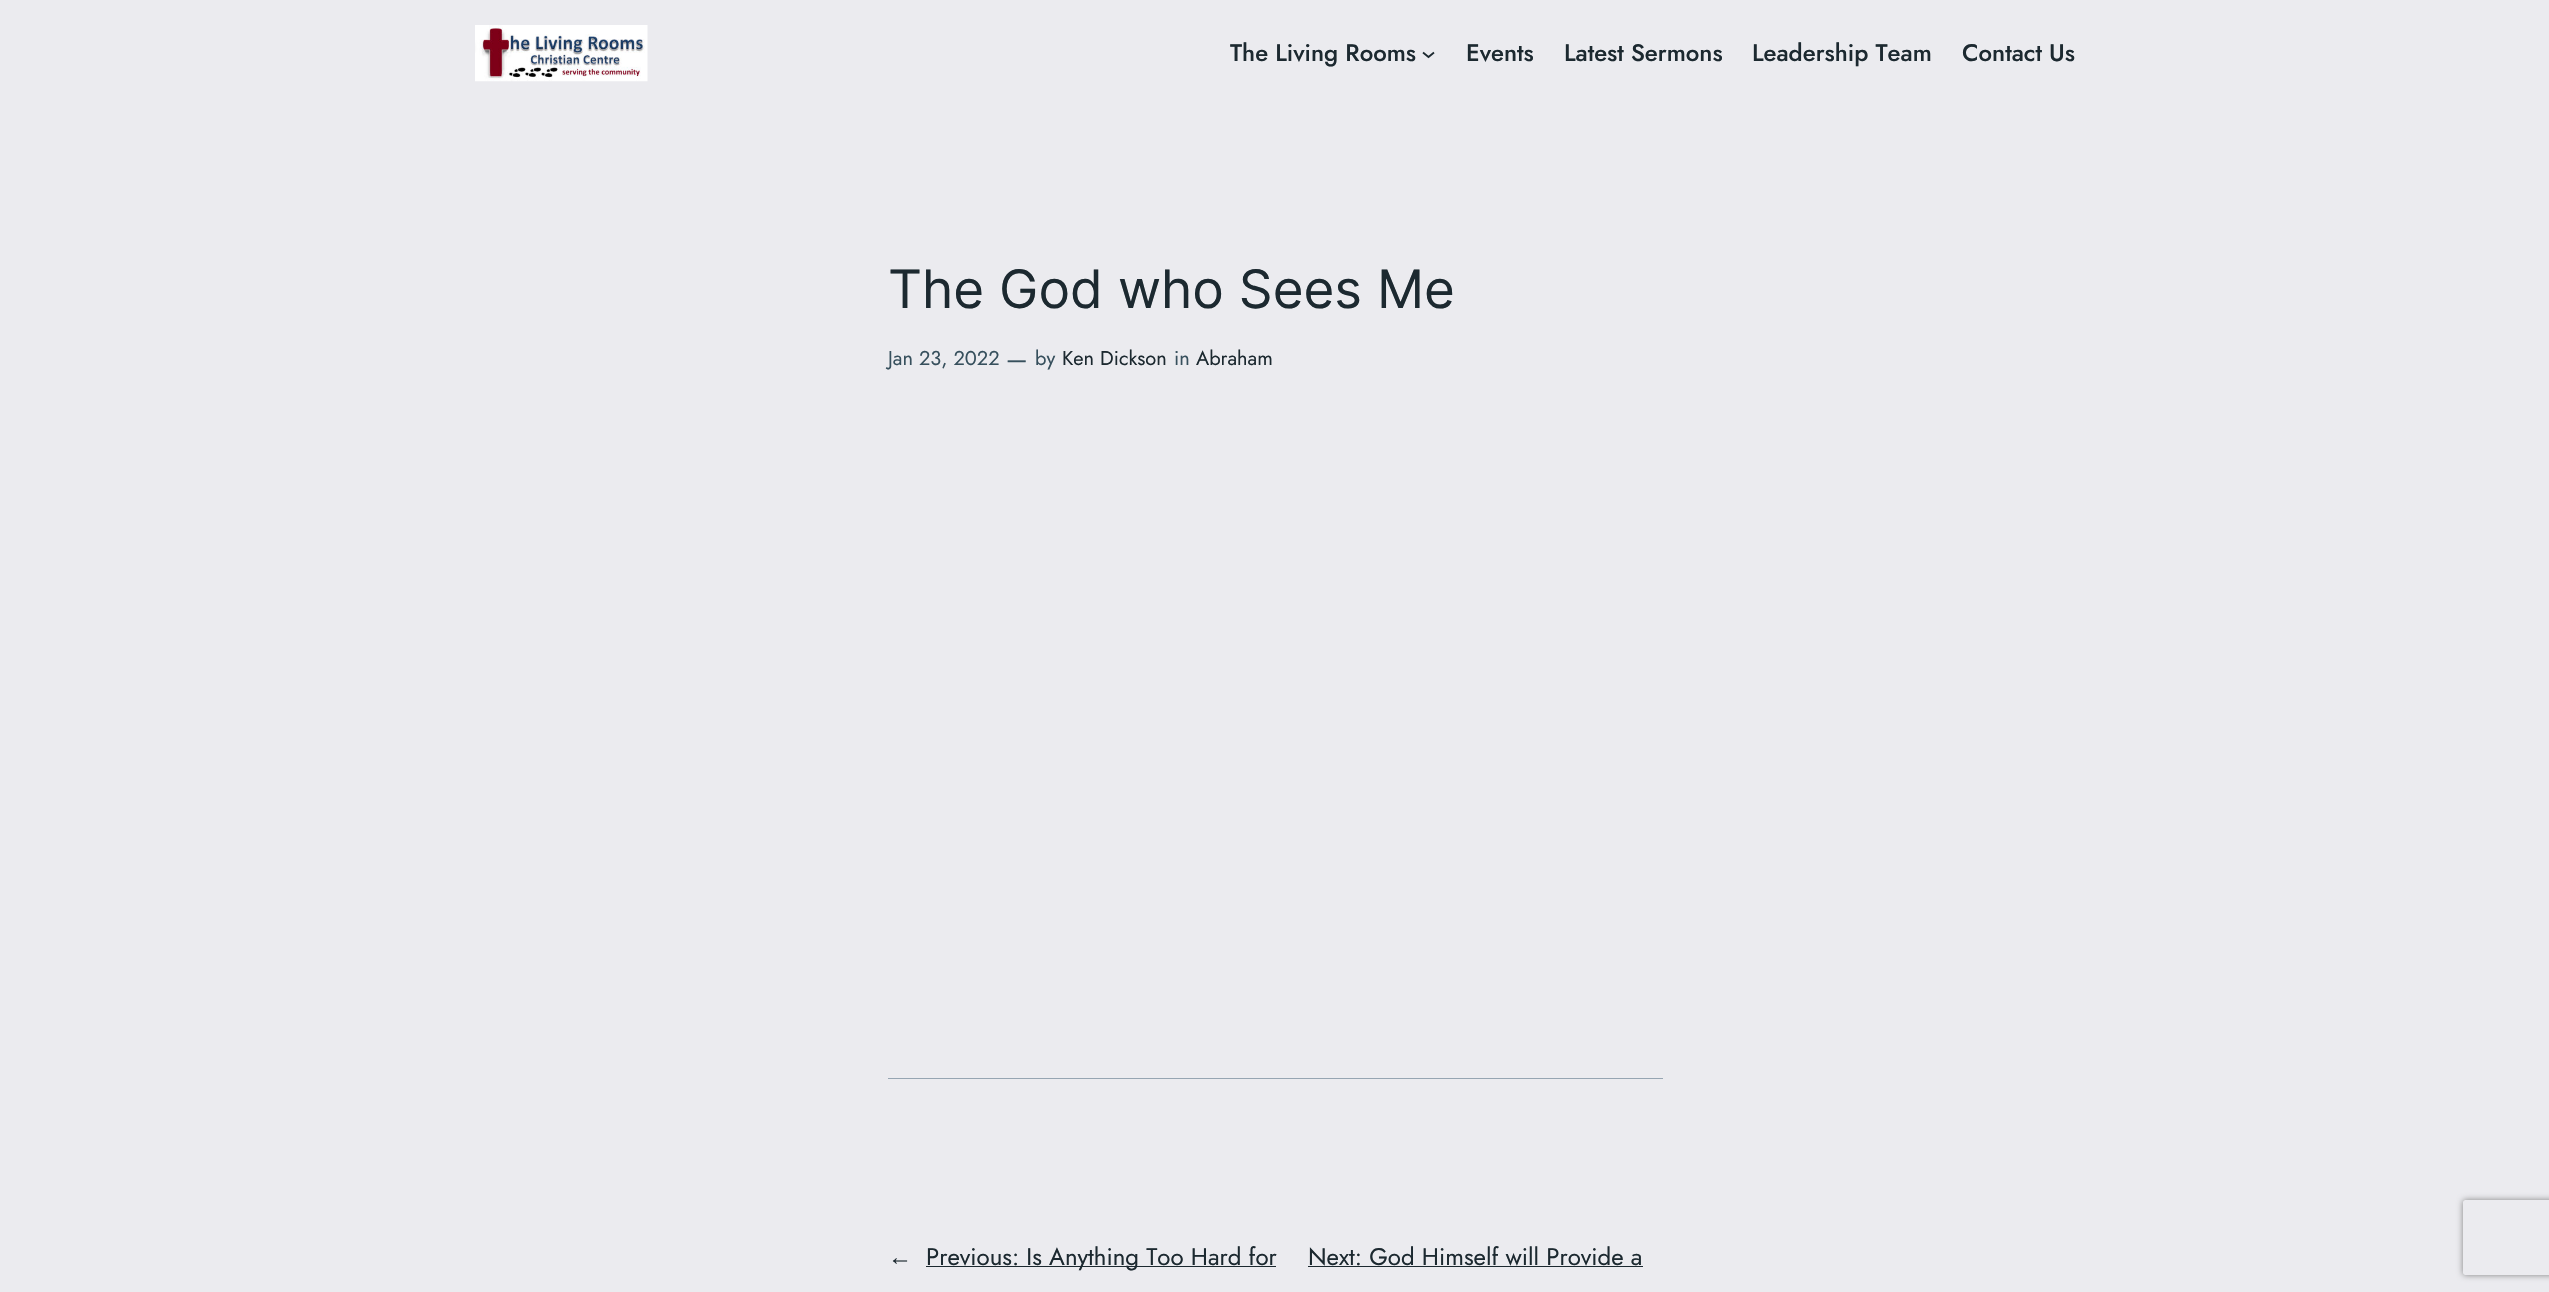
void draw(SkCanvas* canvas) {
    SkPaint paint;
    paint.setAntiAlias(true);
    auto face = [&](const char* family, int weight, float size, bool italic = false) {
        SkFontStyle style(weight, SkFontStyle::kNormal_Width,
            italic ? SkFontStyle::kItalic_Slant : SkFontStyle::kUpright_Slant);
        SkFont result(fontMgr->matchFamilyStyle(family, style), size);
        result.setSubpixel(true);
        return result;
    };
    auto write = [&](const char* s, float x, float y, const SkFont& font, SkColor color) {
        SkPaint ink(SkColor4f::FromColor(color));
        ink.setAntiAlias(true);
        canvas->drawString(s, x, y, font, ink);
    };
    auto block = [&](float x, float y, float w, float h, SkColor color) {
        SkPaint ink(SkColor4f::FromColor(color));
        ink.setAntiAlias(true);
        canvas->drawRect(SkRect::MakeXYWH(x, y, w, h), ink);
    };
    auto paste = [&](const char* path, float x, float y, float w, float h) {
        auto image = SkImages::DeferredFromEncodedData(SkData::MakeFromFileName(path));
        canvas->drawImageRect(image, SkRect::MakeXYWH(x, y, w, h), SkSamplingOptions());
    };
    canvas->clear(SkColorSetRGB(235, 235, 239));
    paste("pic1.png", 475, 25, 173, 57);
    auto kFont1 = face("Jost", 500, 24);
    write("The Living Rooms", 1230, 61, kFont1, SkColorSetRGB(28, 41, 48));
    paint.setStyle(SkPaint::kStroke_Style);
    paint.setStrokeWidth(1.8f);
    paint.setColor(SkColorSetRGB(28, 41, 48));
    canvas->drawPath(SkPathBuilder().moveTo(1423, 52.5f).lineTo(1428.5f, 57).lineTo(1434, 52.5f).detach(), paint);
    write("Events", 1466, 61, kFont1, SkColorSetRGB(28, 41, 48));
    write("Latest Sermons", 1564, 61, kFont1, SkColorSetRGB(28, 41, 48));
    write("Leadership Team", 1752, 61, kFont1, SkColorSetRGB(28, 41, 48));
    write("Contact Us", 1962, 61, kFont1, SkColorSetRGB(28, 41, 48));
    auto kFont2 = face("Inter", 400, 53);
    write("The God who Sees Me", 888, 308, kFont2, SkColorSetRGB(28, 41, 48));
    auto kFont3 = face("Jost", 400, 20);
    write("Jan 23, 2022", 888, 365, kFont3, SkColorSetRGB(55, 80, 93));
    auto kFont4 = face("Jost", 400, 24);
    write("—", 1006, 367, kFont4, SkColorSetRGB(55, 80, 93));
    write("by", 1035, 365, kFont3, SkColorSetRGB(55, 80, 93));
    write("Ken Dickson", 1062, 365, kFont3, SkColorSetRGB(28, 41, 48));
    write("in", 1174, 365, kFont3, SkColorSetRGB(55, 80, 93));
    write("Abraham", 1196, 365, kFont3, SkColorSetRGB(28, 41, 48));
    block(888, 1078, 775, 1, SkColorSetRGB(150, 165, 178));
    auto kFont5 = face("Liberation Sans", 400, 24);
    write("←", 888, 1265, kFont5, SkColorSetRGB(28, 41, 48));
    block(926, 1266, 350, 1, SkColorSetRGB(28, 41, 48));
    write("Previous: Is Anything Too Hard for", 926, 1265, kFont4, SkColorSetRGB(28, 41, 48));
    write("Next: God Himself will Provide a", 1308, 1265, kFont4, SkColorSetRGB(28, 41, 48));
    block(1308, 1266, 335, 1, SkColorSetRGB(28, 41, 48));
    canvas->save();
    canvas->clipPath(SkPathBuilder(SkPathFillType::kEvenOdd).moveTo(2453, 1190).lineTo(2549, 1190).lineTo(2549, 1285).lineTo(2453, 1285).close().moveTo(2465.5f, 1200).lineTo(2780.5f, 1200).cubicTo(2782, 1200, 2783, 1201, 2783, 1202.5f).lineTo(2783, 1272.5f).cubicTo(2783, 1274, 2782, 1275, 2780.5f, 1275).lineTo(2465.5f, 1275).cubicTo(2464, 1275, 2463, 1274, 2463, 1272.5f).lineTo(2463, 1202.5f).cubicTo(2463, 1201, 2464, 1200, 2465.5f, 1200).close().detach(), true);
    paint.setStyle(SkPaint::kFill_Style);
    paint.setColor(SkColorSetRGB(128, 128, 128));
    paint.setMaskFilter(SkMaskFilter::MakeBlur(kNormal_SkBlurStyle, 3));
    canvas->drawRoundRect(SkRect::MakeXYWH(2463, 1200, 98, 75), 2.5f, 2.5f, paint);
    paint.setMaskFilter(nullptr);
    canvas->restore();
}
